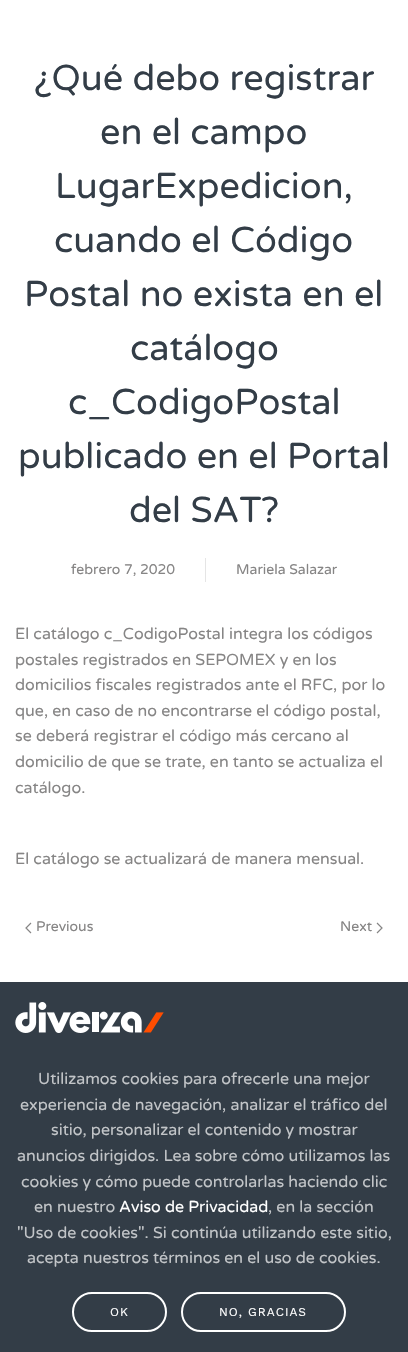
void draw(SkCanvas* canvas) {
    SkPaint paint;
    paint.setAntiAlias(true);
    auto face = [&](const char* family, int weight, float size, bool italic = false) {
        SkFontStyle style(weight, SkFontStyle::kNormal_Width,
            italic ? SkFontStyle::kItalic_Slant : SkFontStyle::kUpright_Slant);
        SkFont result(fontMgr->matchFamilyStyle(family, style), size);
        result.setSubpixel(true);
        return result;
    };
    auto write = [&](const char* s, float x, float y, const SkFont& font, SkColor color) {
        SkPaint ink(SkColor4f::FromColor(color));
        ink.setAntiAlias(true);
        canvas->drawString(s, x, y, font, ink);
    };
    auto writeSpaced = [&](const char* s, float x, float y, const SkFont& font, const SkPaint& ink, float letter, float word) {
        std::vector<SkGlyphID> glyphs(font.countText(s, strlen(s), SkTextEncoding::kUTF8));
        std::vector<float> xs(glyphs.size());
        font.textToGlyphs(s, strlen(s), SkTextEncoding::kUTF8, glyphs);
        font.getXPos(glyphs, xs, x);
        float extra = 0;
        for (size_t i = 0; i < glyphs.size(); i++) {
            xs[i] += extra;
            extra += letter + word * (glyphs[i] == font.unicharToGlyph(' '));
        }
        canvas->drawTextBlob(SkTextBlob::MakeFromPosHGlyphs(glyphs, xs, y, font), 0, 0, ink);
    };
    auto block = [&](float x, float y, float w, float h, SkColor color) {
        SkPaint ink(SkColor4f::FromColor(color));
        ink.setAntiAlias(true);
        canvas->drawRect(SkRect::MakeXYWH(x, y, w, h), ink);
    };
    auto paste = [&](const char* path, float x, float y, float w, float h) {
        auto image = SkImages::DeferredFromEncodedData(SkData::MakeFromFileName(path));
        canvas->drawImageRect(image, SkRect::MakeXYWH(x, y, w, h), SkSamplingOptions());
    };
    canvas->clear(SK_ColorWHITE);
    auto kFont1 = face("Varela Round", 400, 36);
    write("¿Qué debo registrar", 34, 90, kFont1, SkColorSetRGB(51, 61, 71));
    write("en el campo", 100, 144, kFont1, SkColorSetRGB(51, 61, 71));
    write("LugarExpedicion,", 55, 198, kFont1, SkColorSetRGB(51, 61, 71));
    write("cuando el Código", 54, 252, kFont1, SkColorSetRGB(51, 61, 71));
    write("Postal no exista en el", 24, 306, kFont1, SkColorSetRGB(51, 61, 71));
    write("catálogo", 130, 360, kFont1, SkColorSetRGB(51, 61, 71));
    write("c_CodigoPostal", 68, 414, kFont1, SkColorSetRGB(51, 61, 71));
    write("publicado en el Portal", 18, 468, kFont1, SkColorSetRGB(51, 61, 71));
    write("del SAT?", 129, 522, kFont1, SkColorSetRGB(51, 61, 71));
    auto kFont2 = face("Varela Round", 400, 14);
    write("febrero 7, 2020", 71, 574, kFont2, SkColorSetRGB(134, 133, 133));
    block(205, 558, 1, 24, SkColorSetRGB(229, 229, 229));
    write("Mariela Salazar", 236, 574, kFont2, SkColorSetRGB(134, 133, 133));
    auto kFont3 = face("Varela Round", 400, 16);
    write("El catálogo c_CodigoPostal integra los códigos", 15, 639, kFont3, SkColorSetRGB(134, 133, 133));
    write("postales registrados en SEPOMEX y en los", 15, 665, kFont3, SkColorSetRGB(134, 133, 133));
    write("domicilios fiscales registrados ante el RFC, por lo", 15, 690, kFont3, SkColorSetRGB(134, 133, 133));
    write("que, en caso de no encontrarse el código postal,", 15, 716, kFont3, SkColorSetRGB(134, 133, 133));
    write("se deberá registrar el código más cercano al", 15, 741, kFont3, SkColorSetRGB(134, 133, 133));
    write("domicilio de que se trate, en tanto se actualiza el", 15, 767, kFont3, SkColorSetRGB(134, 133, 133));
    write("catálogo.", 15, 793, kFont3, SkColorSetRGB(134, 133, 133));
    write("El catálogo se actualizará de manera mensual.", 15, 864, kFont3, SkColorSetRGB(134, 133, 133));
    paint.setStyle(SkPaint::kStroke_Style);
    paint.setStrokeWidth(1.2f);
    paint.setColor(SkColorSetRGB(134, 133, 133));
    canvas->drawPath(SkPathBuilder().moveTo(31, 923).lineTo(26, 928).lineTo(31, 933).detach(), paint);
    write("Previous", 36, 931, kFont2, SkColorSetRGB(134, 133, 133));
    write("Next", 340, 931, kFont2, SkColorSetRGB(134, 133, 133));
    canvas->drawPath(SkPathBuilder().moveTo(377, 923).lineTo(382, 928).lineTo(377, 933).detach(), paint);
    block(0, 982, 408, 370, SkColorSetRGB(51, 61, 71));
    paste("pic1.png", 15, 1002, 149, 31);
    write("Utilizamos cookies para ofrecerle una mejor", 38, 1084, kFont3, SkColorSetRGB(194, 197, 200));
    write("experiencia de navegación, analizar el tráfico del", 20, 1110, kFont3, SkColorSetRGB(194, 197, 200));
    write("sitio, personalizar el contenido y mostrar", 51, 1135, kFont3, SkColorSetRGB(194, 197, 200));
    write("anuncios dirigidos. Lea sobre cómo utilizamos las", 17, 1161, kFont3, SkColorSetRGB(194, 197, 200));
    write("cookies y cómo puede controlarlas haciendo clic", 21, 1187, kFont3, SkColorSetRGB(194, 197, 200));
    write("en nuestro", 34, 1212, kFont3, SkColorSetRGB(194, 197, 200));
    write("Aviso de Privacidad", 119, 1212, kFont3, SK_ColorWHITE);
    write(", en la sección", 268, 1212, kFont3, SkColorSetRGB(194, 197, 200));
    write("\"Uso de cookies\". Si continúa utilizando este sitio,", 17, 1238, kFont3, SkColorSetRGB(194, 197, 200));
    write("acepta nuestros términos en el uso de cookies.", 27, 1263, kFont3, SkColorSetRGB(194, 197, 200));
    paint.setStrokeWidth(2);
    paint.setColor(SK_ColorWHITE);
    canvas->drawRoundRect(SkRect::MakeXYWH(73, 1293, 93, 38), 19, 19, paint);
    auto kFont4 = face("Work Sans", 400, 12);
    paint.setStyle(SkPaint::kFill_Style);
    writeSpaced("OK", 110, 1316, kFont4, paint, 1, 0);
    paint.setStyle(SkPaint::kStroke_Style);
    canvas->drawRoundRect(SkRect::MakeXYWH(182, 1293, 163, 38), 19, 19, paint);
    paint.setStyle(SkPaint::kFill_Style);
    writeSpaced("NO, GRACIAS", 219, 1316, kFont4, paint, 1, 0);
}
